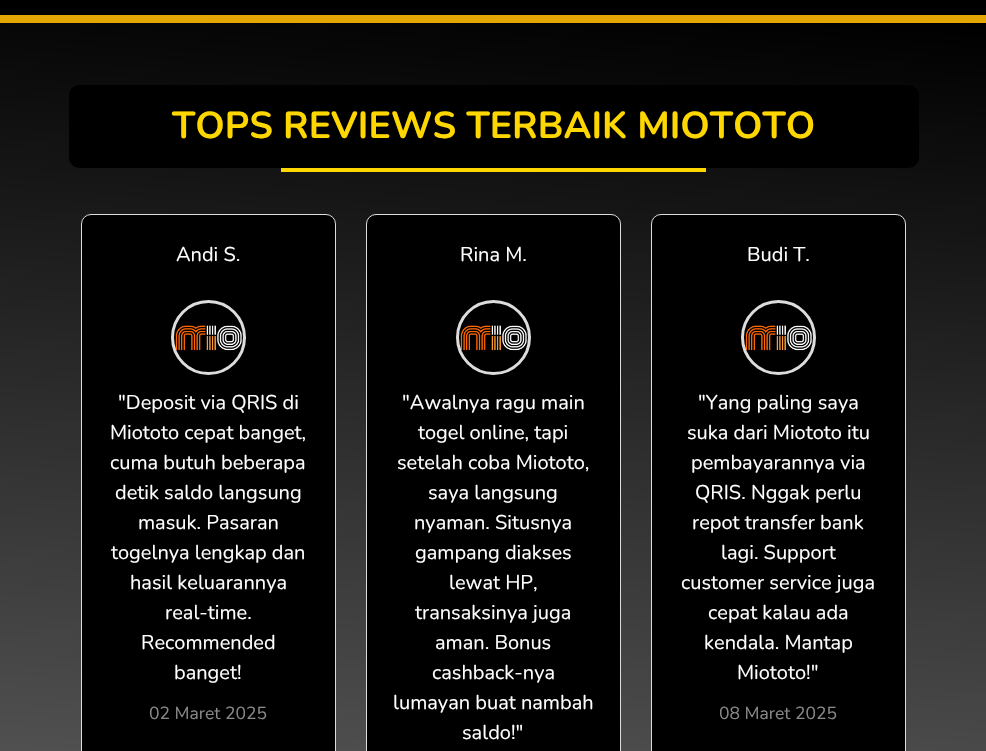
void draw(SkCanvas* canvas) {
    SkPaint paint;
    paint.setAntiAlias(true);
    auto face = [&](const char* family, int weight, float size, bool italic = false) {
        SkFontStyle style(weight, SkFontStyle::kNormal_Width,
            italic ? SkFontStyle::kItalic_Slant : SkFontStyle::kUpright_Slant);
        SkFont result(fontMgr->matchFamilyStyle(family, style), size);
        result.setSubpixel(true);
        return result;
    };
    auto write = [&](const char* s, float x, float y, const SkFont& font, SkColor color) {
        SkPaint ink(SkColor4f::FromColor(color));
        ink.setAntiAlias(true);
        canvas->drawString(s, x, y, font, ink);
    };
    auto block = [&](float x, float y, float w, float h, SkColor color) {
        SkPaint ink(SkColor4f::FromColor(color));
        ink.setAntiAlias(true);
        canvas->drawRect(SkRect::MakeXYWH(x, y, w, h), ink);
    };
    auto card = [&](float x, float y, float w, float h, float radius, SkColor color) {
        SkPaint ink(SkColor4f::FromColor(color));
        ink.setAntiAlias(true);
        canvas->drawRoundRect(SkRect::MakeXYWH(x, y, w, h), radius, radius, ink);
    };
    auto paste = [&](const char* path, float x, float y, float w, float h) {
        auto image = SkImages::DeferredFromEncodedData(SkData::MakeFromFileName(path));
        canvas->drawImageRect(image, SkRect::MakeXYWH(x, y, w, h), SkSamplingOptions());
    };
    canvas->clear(SK_ColorBLACK);
    {
        const SkColor colors[] = {SkColorSetRGB(105, 105, 105), SK_ColorBLACK};
        const float stops[] = {0, 1};
        const SkPoint ends[] = {{457, 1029}, {529, -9}};
        paint.setShader(SkGradientShader::MakeLinear(ends, colors, stops, 2, SkTileMode::kClamp));
        paint.setAlpha(255);
    }
    canvas->drawRect(SkRect::MakeXYWH(0, 23, 986, 728), paint);
    block(0, 15, 986, 8, SkColorSetRGB(228, 166, 0));
    card(69, 85, 850, 83, 10, SK_ColorBLACK);
    auto kFont1 = face("Nunito", 700, 37.5f);
    write("TOPS REVIEWS TERBAIK MIOTOTO", 172, 138, kFont1, SkColorSetRGB(255, 215, 0));
    block(281, 168, 425, 4, SkColorSetRGB(255, 215, 0));
    paint.setShader(nullptr);
    paint.setColor(SK_ColorBLACK);
    canvas->drawRoundRect(SkRect::MakeXYWH(81.5f, 214.5f, 254, 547), 9.5f, 9.5f, paint);
    paint.setStyle(SkPaint::kStroke_Style);
    paint.setStrokeWidth(1);
    paint.setColor(SkColorSetRGB(221, 221, 221));
    canvas->drawRoundRect(SkRect::MakeXYWH(81.5f, 214.5f, 254, 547), 9.5f, 9.5f, paint);
    auto kFont2 = face("Nunito", 400, 20);
    write("Andi S.", 176, 261, kFont2, SK_ColorWHITE);
    paint.setStrokeWidth(3);
    canvas->drawCircle(208.5f, 337.5f, 36, paint);
    paste("pic1.png", 175, 325, 67, 26);
    write("\"Deposit via QRIS di", 118, 409, kFont2, SK_ColorWHITE);
    write("Miototo cepat banget,", 110, 439, kFont2, SK_ColorWHITE);
    write("cuma butuh beberapa", 110, 469, kFont2, SK_ColorWHITE);
    write("detik saldo langsung", 115, 499, kFont2, SK_ColorWHITE);
    write("masuk. Pasaran", 138, 529, kFont2, SK_ColorWHITE);
    write("togelnya lengkap dan", 111, 559, kFont2, SK_ColorWHITE);
    write("hasil keluarannya", 130, 589, kFont2, SK_ColorWHITE);
    write("real-time.", 165, 619, kFont2, SK_ColorWHITE);
    write("Recommended", 141, 649, kFont2, SK_ColorWHITE);
    write("banget!", 174, 679, kFont2, SK_ColorWHITE);
    auto kFont3 = face("Nunito", 400, 17.5f);
    write("02 Maret 2025", 149, 719, kFont3, SkColorSetRGB(136, 136, 136));
    paint.setStyle(SkPaint::kFill_Style);
    paint.setColor(SK_ColorBLACK);
    canvas->drawRoundRect(SkRect::MakeXYWH(366.5f, 214.5f, 254, 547), 9.5f, 9.5f, paint);
    paint.setStyle(SkPaint::kStroke_Style);
    paint.setStrokeWidth(1);
    paint.setColor(SkColorSetRGB(221, 221, 221));
    canvas->drawRoundRect(SkRect::MakeXYWH(366.5f, 214.5f, 254, 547), 9.5f, 9.5f, paint);
    write("Rina M.", 460, 261, kFont2, SK_ColorWHITE);
    paint.setStrokeWidth(3);
    canvas->drawCircle(493.5f, 337.5f, 36, paint);
    paste("pic2.png", 460, 325, 67, 26);
    write("\"Awalnya ragu main", 402, 409, kFont2, SK_ColorWHITE);
    write("togel online, tapi", 418, 439, kFont2, SK_ColorWHITE);
    write("setelah coba Miototo,", 397, 469, kFont2, SK_ColorWHITE);
    write("saya langsung", 428, 499, kFont2, SK_ColorWHITE);
    write("nyaman. Situsnya", 414, 529, kFont2, SK_ColorWHITE);
    write("gampang diakses", 415, 559, kFont2, SK_ColorWHITE);
    write("lewat HP,", 449, 589, kFont2, SK_ColorWHITE);
    write("transaksinya juga", 415, 619, kFont2, SK_ColorWHITE);
    write("aman. Bonus", 435, 649, kFont2, SK_ColorWHITE);
    write("cashback-nya", 432, 679, kFont2, SK_ColorWHITE);
    write("lumayan buat nambah", 393, 709, kFont2, SK_ColorWHITE);
    write("saldo!\"", 462, 739, kFont2, SK_ColorWHITE);
    paint.setStyle(SkPaint::kFill_Style);
    paint.setColor(SK_ColorBLACK);
    canvas->drawRoundRect(SkRect::MakeXYWH(651.5f, 214.5f, 254, 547), 9.5f, 9.5f, paint);
    paint.setStyle(SkPaint::kStroke_Style);
    paint.setStrokeWidth(1);
    paint.setColor(SkColorSetRGB(221, 221, 221));
    canvas->drawRoundRect(SkRect::MakeXYWH(651.5f, 214.5f, 254, 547), 9.5f, 9.5f, paint);
    write("Budi T.", 747, 261, kFont2, SK_ColorWHITE);
    paint.setStrokeWidth(3);
    canvas->drawCircle(778.5f, 337.5f, 36, paint);
    paste("pic3.png", 745, 325, 67, 26);
    write("\"Yang paling saya", 698, 409, kFont2, SK_ColorWHITE);
    write("suka dari Miototo itu", 687, 439, kFont2, SK_ColorWHITE);
    write("pembayarannya via", 691, 469, kFont2, SK_ColorWHITE);
    write("QRIS. Nggak perlu", 695, 499, kFont2, SK_ColorWHITE);
    write("repot transfer bank", 692, 529, kFont2, SK_ColorWHITE);
    write("lagi. Support", 721, 559, kFont2, SK_ColorWHITE);
    write("customer service juga", 681, 589, kFont2, SK_ColorWHITE);
    write("cepat kalau ada", 708, 619, kFont2, SK_ColorWHITE);
    write("kendala. Mantap", 704, 649, kFont2, SK_ColorWHITE);
    write("Miototo!\"", 737, 679, kFont2, SK_ColorWHITE);
    write("08 Maret 2025", 719, 719, kFont3, SkColorSetRGB(136, 136, 136));
}
